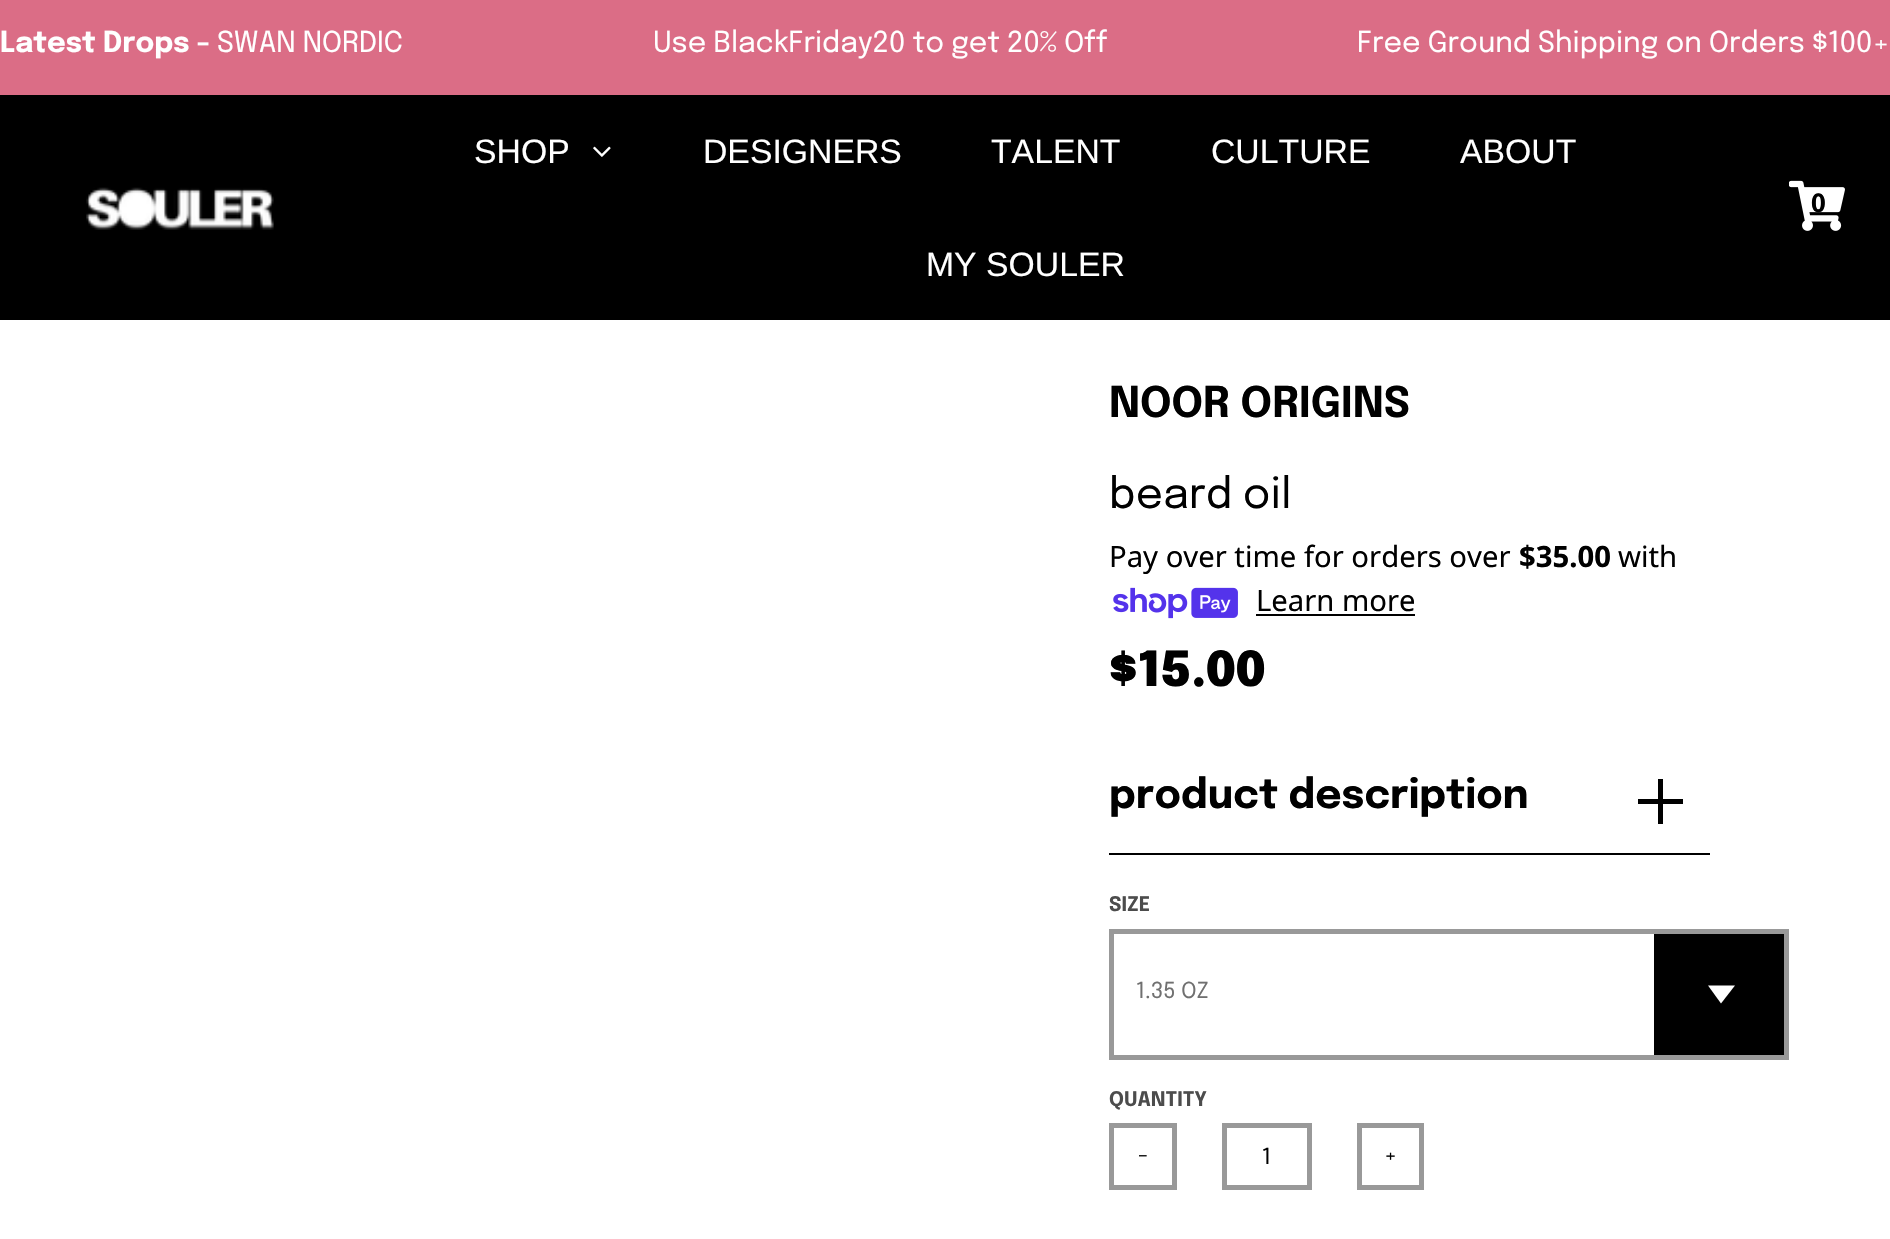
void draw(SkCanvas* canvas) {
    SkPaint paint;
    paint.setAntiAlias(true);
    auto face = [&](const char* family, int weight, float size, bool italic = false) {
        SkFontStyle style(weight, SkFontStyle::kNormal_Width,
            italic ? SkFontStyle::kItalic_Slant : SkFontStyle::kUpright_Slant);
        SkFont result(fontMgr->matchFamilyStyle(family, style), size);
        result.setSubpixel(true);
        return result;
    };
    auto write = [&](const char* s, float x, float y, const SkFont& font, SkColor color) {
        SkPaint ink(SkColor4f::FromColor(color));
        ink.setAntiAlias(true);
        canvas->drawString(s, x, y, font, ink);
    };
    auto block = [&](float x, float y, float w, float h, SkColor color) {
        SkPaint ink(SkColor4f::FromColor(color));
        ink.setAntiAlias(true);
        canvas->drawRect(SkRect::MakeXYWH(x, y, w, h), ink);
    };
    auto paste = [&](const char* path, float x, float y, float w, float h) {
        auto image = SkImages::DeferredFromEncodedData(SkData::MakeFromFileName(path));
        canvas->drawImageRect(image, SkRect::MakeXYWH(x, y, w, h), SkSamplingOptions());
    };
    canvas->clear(SK_ColorWHITE);
    block(0, 0, 1890, 95, SkColorSetRGB(219, 109, 134));
    auto kFont1 = face("Epilogue", 700, 28.75f);
    write("Latest Drops -", 0, 52, kFont1, SK_ColorWHITE);
    auto kFont2 = face("Epilogue", 400, 28.75f);
    write("SWAN NORDIC", 217, 52, kFont2, SK_ColorWHITE);
    write("Use BlackFriday20 to get 20% Off", 653, 52, kFont2, SK_ColorWHITE);
    write("Free Ground Shipping on Orders $100+", 1357, 52, kFont2, SK_ColorWHITE);
    block(0, 95, 1890, 225, SK_ColorBLACK);
    paste("pic1.png", 86, 187, 188, 43);
    auto kFont3 = face("Liberation Sans", 400, 33.75f);
    write("SHOP", 474, 163, kFont3, SK_ColorWHITE);
    paste("pic2.png", 593, 146, 18, 11);
    write("DESIGNERS", 703, 163, kFont3, SK_ColorWHITE);
    write("TALENT", 991, 163, kFont3, SK_ColorWHITE);
    write("CULTURE", 1211, 163, kFont3, SK_ColorWHITE);
    write("ABOUT", 1460, 163, kFont3, SK_ColorWHITE);
    write("MY SOULER", 926, 276, kFont3, SK_ColorWHITE);
    paste("pic3.png", 1789, 180, 56, 51);
    auto kFont4 = face("Epilogue", 700, 25);
    write("0", 1811, 212, kFont4, SK_ColorBLACK);
    auto kFont5 = face("Epilogue", 700, 42.25f);
    write("NOOR ORIGINS", 1109, 417, kFont5, SK_ColorBLACK);
    auto kFont6 = face("Epilogue", 400, 42.25f);
    write("beard oil", 1109, 508, kFont6, SK_ColorBLACK);
    auto kFont7 = face("Noto Sans", 400, 29.25f);
    write("Pay over time for orders over", 1109, 567, kFont7, SK_ColorBLACK);
    auto kFont8 = face("Noto Sans", 700, 29.25f);
    write("$35.00", 1519, 567, kFont8, SK_ColorBLACK);
    write("with", 1618, 567, kFont7, SK_ColorBLACK);
    paste("pic4.png", 1113, 587, 125, 32);
    write("Learn more", 1256, 611, kFont7, SK_ColorBLACK);
    block(1256, 614, 159, 2, SK_ColorBLACK);
    auto kFont9 = face("Epilogue", 900, 48);
    write("$15.00", 1109, 686, kFont9, SK_ColorBLACK);
    block(1109, 853, 601, 2, SK_ColorBLACK);
    auto kFont10 = face("Epilogue", 700, 40.5f);
    write("product description", 1109, 808, kFont10, SK_ColorBLACK);
    block(1658, 779, 5, 45, SK_ColorBLACK);
    block(1638, 799, 45, 5, SK_ColorBLACK);
    auto kFont11 = face("Epilogue", 700, 20);
    write("SIZE", 1109, 911, kFont11, SkColorSetRGB(76, 76, 76));
    block(1654, 934, 130, 121, SK_ColorBLACK);
    paint.setColor(SK_ColorWHITE);
    canvas->drawPath(SkPathBuilder().moveTo(1708, 985.5f).lineTo(1735, 985.5f).lineTo(1721, 1003.5f).close().detach(), paint);
    paint.setStyle(SkPaint::kStroke_Style);
    paint.setStrokeWidth(5);
    paint.setColor(SkColorSetRGB(153, 153, 153));
    canvas->drawRect(SkRect::MakeXYWH(1111.5f, 931.5f, 675, 126), paint);
    auto kFont12 = face("Epilogue", 400, 22);
    write("1.35 OZ", 1136, 998, kFont12, SkColorSetRGB(112, 112, 112));
    write("QUANTITY", 1109, 1106, kFont11, SkColorSetRGB(76, 76, 76));
    canvas->drawRect(SkRect::MakeXYWH(1111.5f, 1125.5f, 63, 62), paint);
    write("-", 1138, 1162, kFont12, SK_ColorBLACK);
    canvas->drawRect(SkRect::MakeXYWH(1224.5f, 1125.5f, 85, 62), paint);
    write("1", 1262, 1164, kFont12, SK_ColorBLACK);
    canvas->drawRect(SkRect::MakeXYWH(1359.5f, 1125.5f, 62, 62), paint);
    write("+", 1384, 1162, kFont12, SK_ColorBLACK);
}
